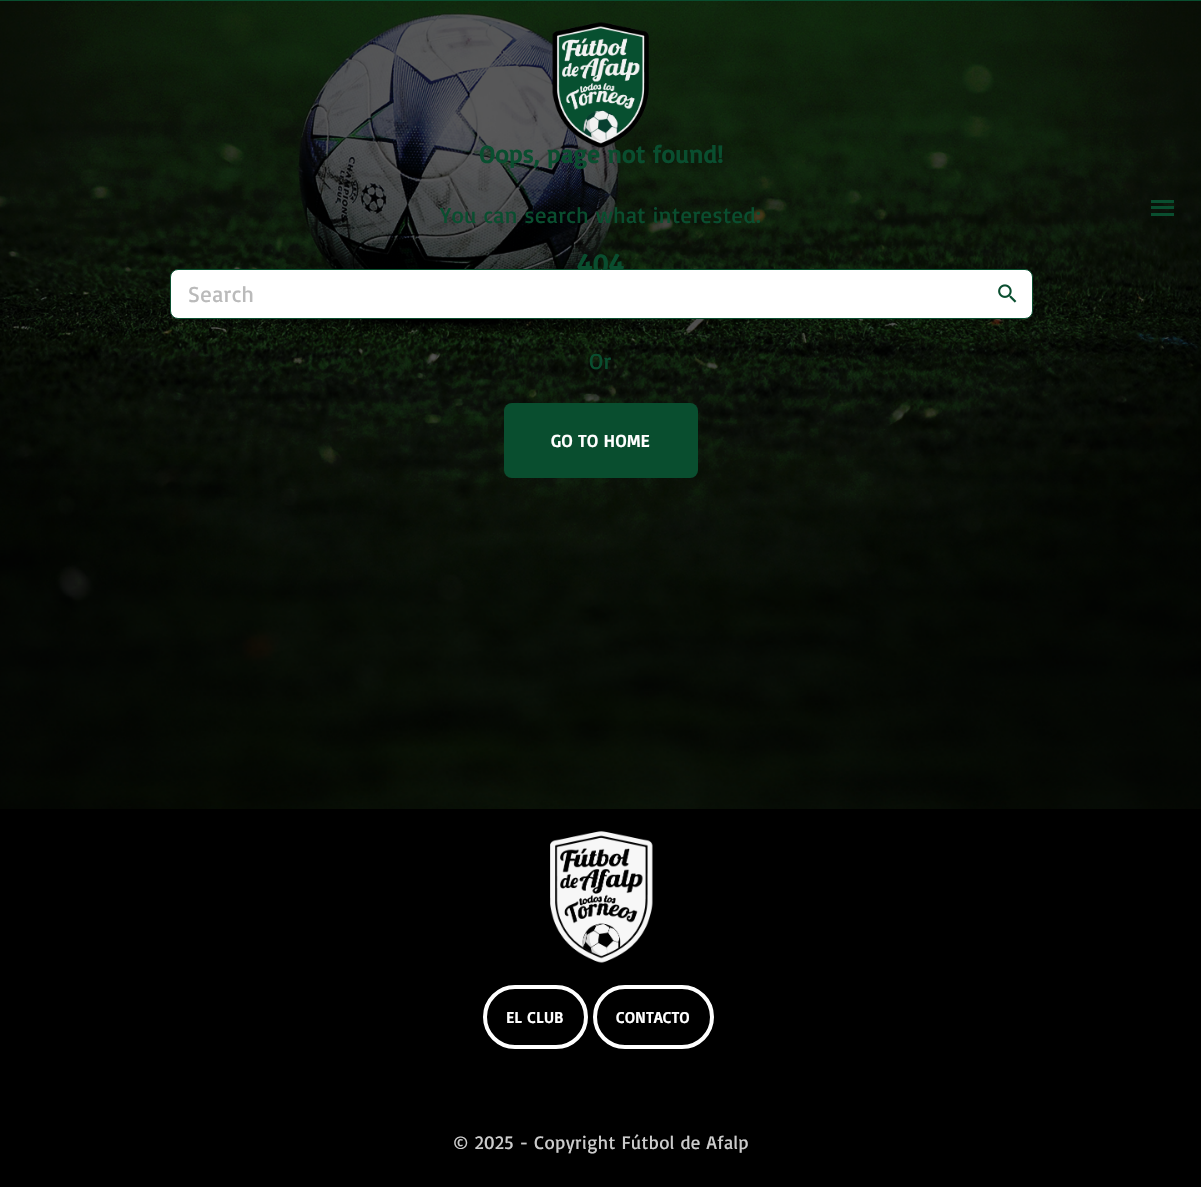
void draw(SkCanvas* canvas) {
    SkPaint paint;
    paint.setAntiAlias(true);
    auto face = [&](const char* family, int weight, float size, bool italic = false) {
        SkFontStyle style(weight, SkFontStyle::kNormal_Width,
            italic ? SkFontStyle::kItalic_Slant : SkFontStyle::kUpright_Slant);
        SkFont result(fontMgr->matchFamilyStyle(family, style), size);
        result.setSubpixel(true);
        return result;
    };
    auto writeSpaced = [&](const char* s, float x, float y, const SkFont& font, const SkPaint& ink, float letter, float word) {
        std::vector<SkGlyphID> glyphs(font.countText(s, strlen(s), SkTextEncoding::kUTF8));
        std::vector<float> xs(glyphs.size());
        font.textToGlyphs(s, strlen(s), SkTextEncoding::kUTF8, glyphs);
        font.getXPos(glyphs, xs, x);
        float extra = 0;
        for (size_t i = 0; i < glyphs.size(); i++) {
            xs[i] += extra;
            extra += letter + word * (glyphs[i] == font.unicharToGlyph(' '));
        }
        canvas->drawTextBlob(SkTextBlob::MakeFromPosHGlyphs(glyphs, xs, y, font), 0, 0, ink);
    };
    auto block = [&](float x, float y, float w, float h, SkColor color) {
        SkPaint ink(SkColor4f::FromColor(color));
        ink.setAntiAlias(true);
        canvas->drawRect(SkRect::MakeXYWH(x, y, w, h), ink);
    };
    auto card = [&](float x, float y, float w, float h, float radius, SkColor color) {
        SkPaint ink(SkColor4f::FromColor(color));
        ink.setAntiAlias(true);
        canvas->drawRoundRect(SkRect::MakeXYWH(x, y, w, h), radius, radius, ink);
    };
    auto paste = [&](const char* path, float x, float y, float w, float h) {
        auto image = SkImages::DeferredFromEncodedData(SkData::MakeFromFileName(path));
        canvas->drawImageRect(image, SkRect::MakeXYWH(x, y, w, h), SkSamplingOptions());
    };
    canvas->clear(SK_ColorWHITE);
    paste("pic1.png", 0, 1, 1201, 808);
    auto kFont1 = face("Basic", 700, 24.75f);
    paint.setColor(SkColorSetRGB(9, 78, 47));
    writeSpaced("Oops, page not found!", 479, 163, kFont1, paint, 0.45f, 0);
    auto kFont2 = face("Basic", 400, 22.5f);
    writeSpaced("You can search what interested:", 440, 223, kFont2, paint, 0.45f, 0);
    auto kFont3 = face("Basic", 700, 28);
    writeSpaced("404", 577, 274, kFont3, paint, 0.45f, 0);
    paint.setColor(SK_ColorWHITE);
    canvas->drawRoundRect(SkRect::MakeXYWH(170.5f, 269.5f, 862, 49), 7.5f, 7.5f, paint);
    paint.setStyle(SkPaint::kStroke_Style);
    paint.setStrokeWidth(1);
    paint.setColor(SkColorSetRGB(9, 78, 47));
    canvas->drawRoundRect(SkRect::MakeXYWH(170.5f, 269.5f, 862, 49), 7.5f, 7.5f, paint);
    paint.setStyle(SkPaint::kFill_Style);
    paint.setColor(SkColorSetRGB(186, 186, 186));
    writeSpaced("Search", 188, 302, kFont2, paint, 0.45f, 0);
    paste("pic2.png", 998, 284, 19, 19);
    paint.setColor(SkColorSetRGB(9, 78, 47));
    writeSpaced("Or", 589, 369, kFont2, paint, 0.45f, 0);
    card(504, 403, 194, 75, 8, SkColorSetRGB(9, 78, 47));
    auto kFont4 = face("Basic", 700, 17.5f);
    paint.setColor(SK_ColorWHITE);
    writeSpaced("GO TO HOME", 551, 447, kFont4, paint, 0.45f, 0);
    block(0, 0, 1201, 1, SkColorSetRGB(9, 78, 47));
    paste("pic3.png", 552, 22, 97, 126);
    block(1151, 206, 23, 3, SkColorSetRGB(9, 78, 47));
    block(1151, 200, 23, 3, SkColorSetRGB(9, 78, 47));
    block(1151, 213, 23, 3, SkColorSetRGB(9, 78, 47));
    block(0, 809, 1201, 378, SK_ColorBLACK);
    paste("pic4.png", 550, 831, 103, 132);
    paint.setStyle(SkPaint::kStroke_Style);
    paint.setStrokeWidth(4);
    canvas->drawRoundRect(SkRect::MakeXYWH(485, 987, 101, 60), 30, 30, paint);
    auto kFont5 = face("Basic", 700, 15.75f);
    paint.setStyle(SkPaint::kFill_Style);
    writeSpaced("EL CLUB", 506, 1023, kFont5, paint, 0.45f, 0);
    paint.setStyle(SkPaint::kStroke_Style);
    canvas->drawRoundRect(SkRect::MakeXYWH(595, 987, 117, 60), 30, 30, paint);
    paint.setStyle(SkPaint::kFill_Style);
    writeSpaced("CONTACTO", 616, 1023, kFont5, paint, 0.45f, 0);
    auto kFont6 = face("Basic", 400, 18.75f);
    paint.setColor(SkColorSetRGB(204, 204, 204));
    writeSpaced("© 2025 - Copyright Fútbol de Afalp", 453, 1149, kFont6, paint, 0.45f, 0);
}
